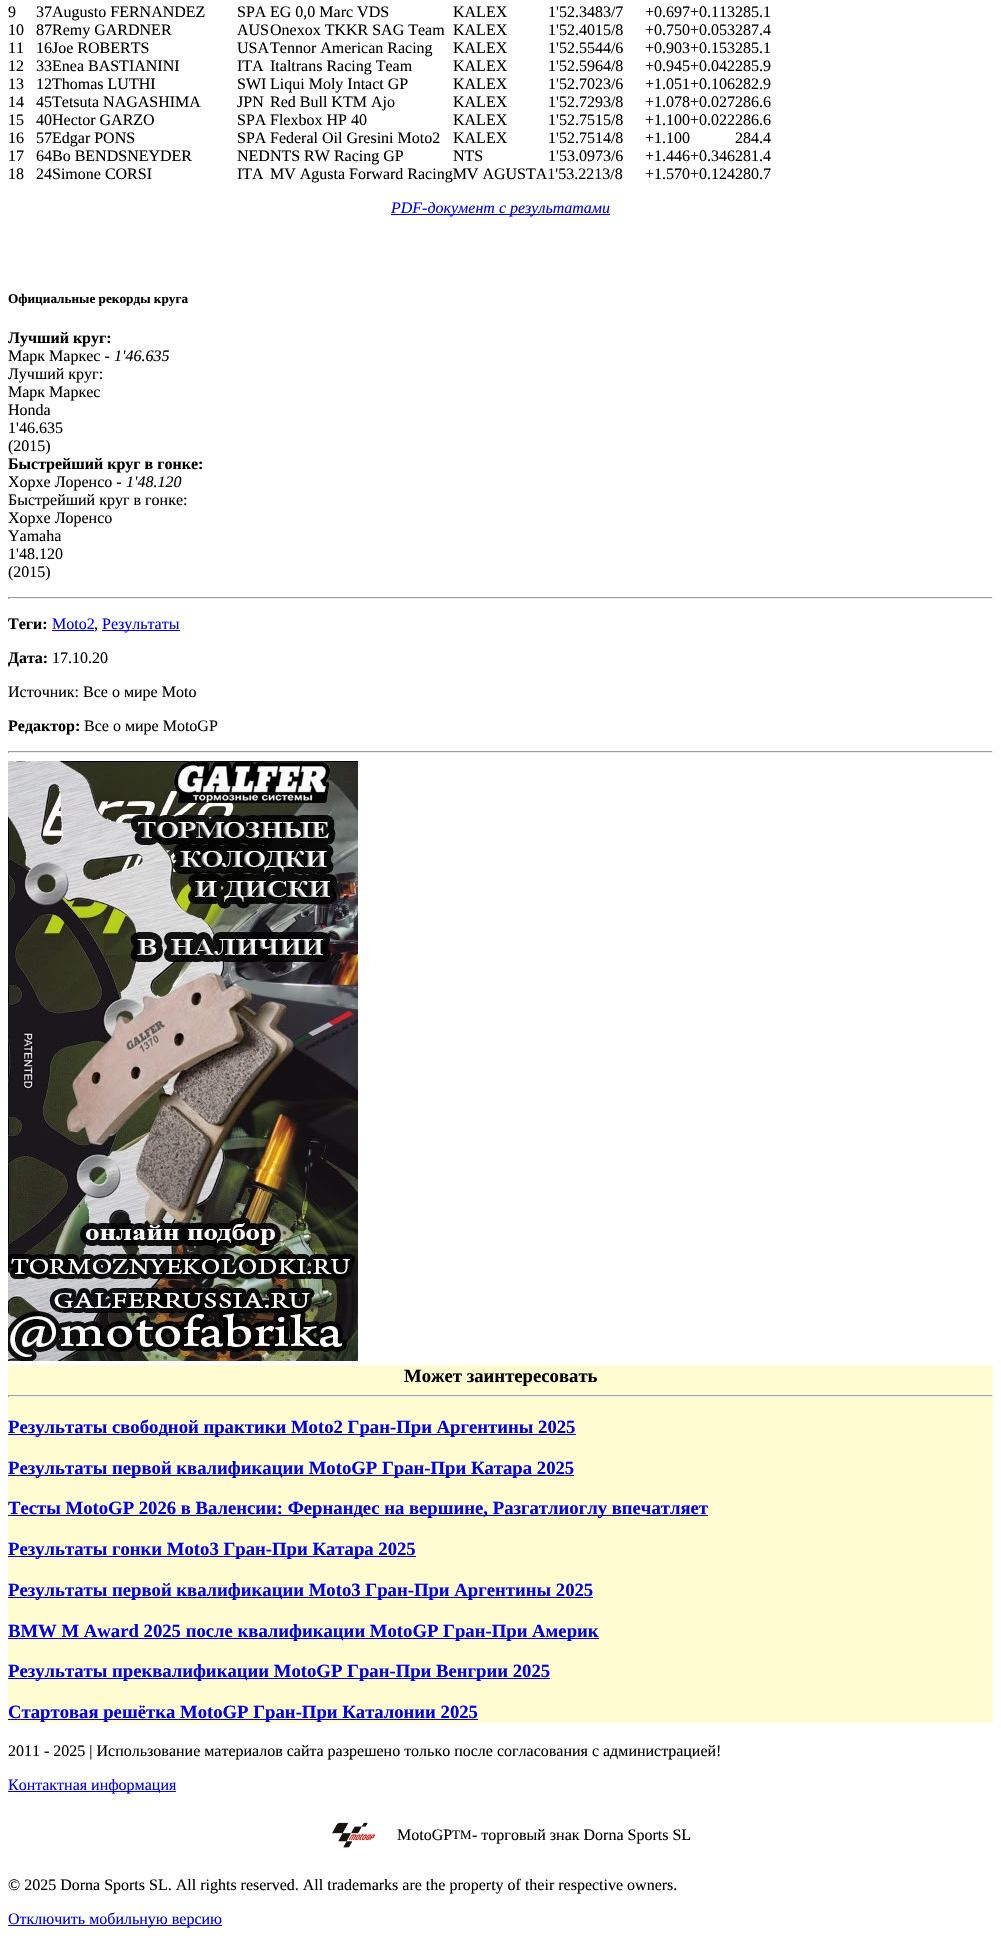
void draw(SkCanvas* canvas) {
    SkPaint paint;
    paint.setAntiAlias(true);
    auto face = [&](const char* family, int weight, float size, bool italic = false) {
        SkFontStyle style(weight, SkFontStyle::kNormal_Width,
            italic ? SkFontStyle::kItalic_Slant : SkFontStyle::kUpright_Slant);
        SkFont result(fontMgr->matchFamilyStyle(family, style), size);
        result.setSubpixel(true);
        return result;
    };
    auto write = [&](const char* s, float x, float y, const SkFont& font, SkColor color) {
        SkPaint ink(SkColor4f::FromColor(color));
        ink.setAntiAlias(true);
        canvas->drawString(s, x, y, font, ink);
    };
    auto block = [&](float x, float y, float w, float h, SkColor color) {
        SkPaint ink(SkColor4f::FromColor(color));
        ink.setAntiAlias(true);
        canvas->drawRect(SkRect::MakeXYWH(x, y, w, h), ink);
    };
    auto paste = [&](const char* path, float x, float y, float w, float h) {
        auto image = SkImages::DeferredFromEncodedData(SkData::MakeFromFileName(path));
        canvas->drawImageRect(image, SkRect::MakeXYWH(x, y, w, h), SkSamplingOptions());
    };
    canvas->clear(SK_ColorWHITE);
    auto kFont1 = face("Liberation Serif", 400, 16);
    write("9", 8, 17, kFont1, SK_ColorBLACK);
    write("37Augusto FERNANDEZ", 36, 17, kFont1, SK_ColorBLACK);
    write("SPA", 237, 17, kFont1, SK_ColorBLACK);
    write("EG 0,0 Marc VDS", 270, 17, kFont1, SK_ColorBLACK);
    write("KALEX", 453, 17, kFont1, SK_ColorBLACK);
    write("1'52.3483/7", 548, 17, kFont1, SK_ColorBLACK);
    write("+0.697+0.113285.1", 645, 17, kFont1, SK_ColorBLACK);
    write("10", 8, 35, kFont1, SK_ColorBLACK);
    write("87Remy GARDNER", 36, 35, kFont1, SK_ColorBLACK);
    write("AUS", 237, 35, kFont1, SK_ColorBLACK);
    write("Onexox TKKR SAG Team", 270, 35, kFont1, SK_ColorBLACK);
    write("KALEX", 453, 35, kFont1, SK_ColorBLACK);
    write("1'52.4015/8", 548, 35, kFont1, SK_ColorBLACK);
    write("+0.750+0.053287.4", 645, 35, kFont1, SK_ColorBLACK);
    write("11", 8, 53, kFont1, SK_ColorBLACK);
    write("16Joe ROBERTS", 36, 53, kFont1, SK_ColorBLACK);
    write("USA", 237, 53, kFont1, SK_ColorBLACK);
    write("Tennor American Racing", 270, 53, kFont1, SK_ColorBLACK);
    write("KALEX", 453, 53, kFont1, SK_ColorBLACK);
    write("1'52.5544/6", 548, 53, kFont1, SK_ColorBLACK);
    write("+0.903+0.153285.1", 645, 53, kFont1, SK_ColorBLACK);
    write("12", 8, 71, kFont1, SK_ColorBLACK);
    write("33Enea BASTIANINI", 36, 71, kFont1, SK_ColorBLACK);
    write("ITA", 237, 71, kFont1, SK_ColorBLACK);
    write("Italtrans Racing Team", 270, 71, kFont1, SK_ColorBLACK);
    write("KALEX", 453, 71, kFont1, SK_ColorBLACK);
    write("1'52.5964/8", 548, 71, kFont1, SK_ColorBLACK);
    write("+0.945+0.042285.9", 645, 71, kFont1, SK_ColorBLACK);
    write("13", 8, 89, kFont1, SK_ColorBLACK);
    write("12Thomas LUTHI", 36, 89, kFont1, SK_ColorBLACK);
    write("SWI", 237, 89, kFont1, SK_ColorBLACK);
    write("Liqui Moly Intact GP", 270, 89, kFont1, SK_ColorBLACK);
    write("KALEX", 453, 89, kFont1, SK_ColorBLACK);
    write("1'52.7023/6", 548, 89, kFont1, SK_ColorBLACK);
    write("+1.051+0.106282.9", 645, 89, kFont1, SK_ColorBLACK);
    write("14", 8, 107, kFont1, SK_ColorBLACK);
    write("45Tetsuta NAGASHIMA", 36, 107, kFont1, SK_ColorBLACK);
    write("JPN", 237, 107, kFont1, SK_ColorBLACK);
    write("Red Bull KTM Ajo", 270, 107, kFont1, SK_ColorBLACK);
    write("KALEX", 453, 107, kFont1, SK_ColorBLACK);
    write("1'52.7293/8", 548, 107, kFont1, SK_ColorBLACK);
    write("+1.078+0.027286.6", 645, 107, kFont1, SK_ColorBLACK);
    write("15", 8, 125, kFont1, SK_ColorBLACK);
    write("40Hector GARZO", 36, 125, kFont1, SK_ColorBLACK);
    write("SPA", 237, 125, kFont1, SK_ColorBLACK);
    write("Flexbox HP 40", 270, 125, kFont1, SK_ColorBLACK);
    write("KALEX", 453, 125, kFont1, SK_ColorBLACK);
    write("1'52.7515/8", 548, 125, kFont1, SK_ColorBLACK);
    write("+1.100+0.022286.6", 645, 125, kFont1, SK_ColorBLACK);
    write("16", 8, 143, kFont1, SK_ColorBLACK);
    write("57Edgar PONS", 36, 143, kFont1, SK_ColorBLACK);
    write("SPA", 237, 143, kFont1, SK_ColorBLACK);
    write("Federal Oil Gresini Moto2", 270, 143, kFont1, SK_ColorBLACK);
    write("KALEX", 453, 143, kFont1, SK_ColorBLACK);
    write("1'52.7514/8", 548, 143, kFont1, SK_ColorBLACK);
    write("+1.100", 645, 143, kFont1, SK_ColorBLACK);
    write("284.4", 735, 143, kFont1, SK_ColorBLACK);
    write("17", 8, 161, kFont1, SK_ColorBLACK);
    write("64Bo BENDSNEYDER", 36, 161, kFont1, SK_ColorBLACK);
    write("NEDNTS RW Racing GP", 237, 161, kFont1, SK_ColorBLACK);
    write("NTS", 453, 161, kFont1, SK_ColorBLACK);
    write("1'53.0973/6", 548, 161, kFont1, SK_ColorBLACK);
    write("+1.446+0.346281.4", 645, 161, kFont1, SK_ColorBLACK);
    write("18", 8, 179, kFont1, SK_ColorBLACK);
    write("24Simone CORSI", 36, 179, kFont1, SK_ColorBLACK);
    write("ITA", 237, 179, kFont1, SK_ColorBLACK);
    write("MV Agusta Forward RacingMV AGUSTA1'53.2213/8", 270, 179, kFont1, SK_ColorBLACK);
    write("+1.570+0.124280.7", 645, 179, kFont1, SK_ColorBLACK);
    block(391, 214, 219, 1, SkColorSetRGB(0, 0, 238));
    auto kFont2 = face("Liberation Serif", 400, 16, true);
    write("PDF-документ с результатами", 391, 213, kFont2, SkColorSetRGB(0, 0, 238));
    auto kFont3 = face("Liberation Serif", 700, 13.25f);
    write("Официальные рекорды круга", 8, 303, kFont3, SK_ColorBLACK);
    auto kFont4 = face("Liberation Serif", 700, 16);
    write("Лучший круг:", 8, 343, kFont4, SK_ColorBLACK);
    write("Марк Маркес -", 8, 361, kFont1, SK_ColorBLACK);
    write("1'46.635", 114, 361, kFont2, SK_ColorBLACK);
    write("Лучший круг:", 8, 379, kFont1, SK_ColorBLACK);
    write("Марк Маркес", 8, 397, kFont1, SK_ColorBLACK);
    write("Honda", 8, 415, kFont1, SK_ColorBLACK);
    write("1'46.635", 8, 433, kFont1, SK_ColorBLACK);
    write("(2015)", 8, 451, kFont1, SK_ColorBLACK);
    write("Быстрейший круг в гонке:", 8, 469, kFont4, SK_ColorBLACK);
    write("Хорхе Лоренсо -", 8, 487, kFont1, SK_ColorBLACK);
    write("1'48.120", 126, 487, kFont2, SK_ColorBLACK);
    write("Быстрейший круг в гонке:", 8, 505, kFont1, SK_ColorBLACK);
    write("Хорхе Лоренсо", 8, 523, kFont1, SK_ColorBLACK);
    write("Yamaha", 8, 541, kFont1, SK_ColorBLACK);
    write("1'48.120", 8, 559, kFont1, SK_ColorBLACK);
    write("(2015)", 8, 577, kFont1, SK_ColorBLACK);
    block(8, 597, 985, 1, SkColorSetRGB(159, 159, 159));
    block(992, 597, 1, 2, SkColorSetRGB(238, 238, 238));
    block(8, 598, 985, 1, SkColorSetRGB(238, 238, 238));
    block(8, 597, 1, 2, SkColorSetRGB(159, 159, 159));
    write("Теги:", 8, 629, kFont4, SK_ColorBLACK);
    write("Moto2", 52, 629, kFont1, SkColorSetRGB(0, 0, 238));
    block(52, 630, 42, 1, SkColorSetRGB(0, 0, 238));
    write(",", 94, 629, kFont1, SK_ColorBLACK);
    block(102, 630, 78, 1, SkColorSetRGB(0, 0, 238));
    write("Результаты", 102, 629, kFont1, SkColorSetRGB(0, 0, 238));
    write("Дата:", 8, 663, kFont4, SK_ColorBLACK);
    write("17.10.20", 52, 663, kFont1, SK_ColorBLACK);
    write("Источник: Все о мире Moto", 8, 697, kFont1, SK_ColorBLACK);
    write("Редактор:", 8, 731, kFont4, SK_ColorBLACK);
    write("Все о мире MotoGP", 84, 731, kFont1, SK_ColorBLACK);
    block(8, 751, 985, 1, SkColorSetRGB(159, 159, 159));
    block(992, 751, 1, 2, SkColorSetRGB(238, 238, 238));
    block(8, 752, 985, 1, SkColorSetRGB(238, 238, 238));
    block(8, 751, 1, 2, SkColorSetRGB(159, 159, 159));
    paste("pic1.png", 8, 761, 350, 600);
    block(8, 1365, 985, 358, SkColorSetRGB(255, 252, 209));
    auto kFont5 = face("Liberation Serif", 700, 18.7f);
    write("Может заинтересовать", 404, 1382, kFont5, SK_ColorBLACK);
    block(8, 1395, 985, 1, SkColorSetRGB(159, 159, 159));
    block(992, 1395, 1, 2, SkColorSetRGB(238, 238, 238));
    block(8, 1396, 985, 1, SkColorSetRGB(238, 238, 238));
    block(8, 1395, 1, 2, SkColorSetRGB(159, 159, 159));
    block(8, 1434, 568, 1, SkColorSetRGB(0, 0, 238));
    write("Результаты свободной практики Moto2 Гран-При Аргентины 2025", 8, 1433, kFont5, SkColorSetRGB(0, 0, 238));
    block(8, 1475, 566, 1, SkColorSetRGB(0, 0, 238));
    write("Результаты первой квалификации MotoGP Гран-При Катара 2025", 8, 1474, kFont5, SkColorSetRGB(0, 0, 238));
    block(8, 1515, 700, 1, SkColorSetRGB(0, 0, 238));
    write("Тесты MotoGP 2026 в Валенсии: Фернандес на вершине, Разгатлиоглу впечатляет", 8, 1514, kFont5, SkColorSetRGB(0, 0, 238));
    block(8, 1556, 408, 1, SkColorSetRGB(0, 0, 238));
    write("Результаты гонки Moto3 Гран-При Катара 2025", 8, 1555, kFont5, SkColorSetRGB(0, 0, 238));
    block(8, 1597, 585, 1, SkColorSetRGB(0, 0, 238));
    write("Результаты первой квалификации Moto3 Гран-При Аргентины 2025", 8, 1596, kFont5, SkColorSetRGB(0, 0, 238));
    block(8, 1638, 591, 1, SkColorSetRGB(0, 0, 238));
    write("BMW M Award 2025 после квалификации MotoGP Гран-При Америк", 8, 1637, kFont5, SkColorSetRGB(0, 0, 238));
    block(8, 1678, 542, 1, SkColorSetRGB(0, 0, 238));
    write("Результаты преквалификации MotoGP Гран-При Венгрии 2025", 8, 1677, kFont5, SkColorSetRGB(0, 0, 238));
    block(8, 1719, 470, 1, SkColorSetRGB(0, 0, 238));
    write("Стартовая решётка MotoGP Гран-При Каталонии 2025", 8, 1718, kFont5, SkColorSetRGB(0, 0, 238));
    write("2011 - 2025 | Использование материалов сайта разрешено только после согласования с администрацией!", 8, 1756, kFont1, SK_ColorBLACK);
    block(8, 1791, 168, 1, SkColorSetRGB(0, 0, 238));
    write("Контактная информация", 8, 1790, kFont1, SkColorSetRGB(0, 0, 238));
    paste("pic2.png", 332, 1822, 44, 26);
    write("MotoGP", 397, 1840, kFont1, SK_ColorBLACK);
    auto kFont6 = face("Liberation Serif", 400, 13);
    write("TM", 452, 1839, kFont6, SK_ColorBLACK);
    write("- торговый знак Dorna Sports SL", 472, 1840, kFont1, SK_ColorBLACK);
    write("© 2025 Dorna Sports SL. All rights reserved. All trademarks are the property of their respective owners.", 8, 1890, kFont1, SK_ColorBLACK);
    block(8, 1925, 214, 1, SkColorSetRGB(0, 0, 238));
    write("Отключить мобильную версию", 8, 1924, kFont1, SkColorSetRGB(0, 0, 238));
}
